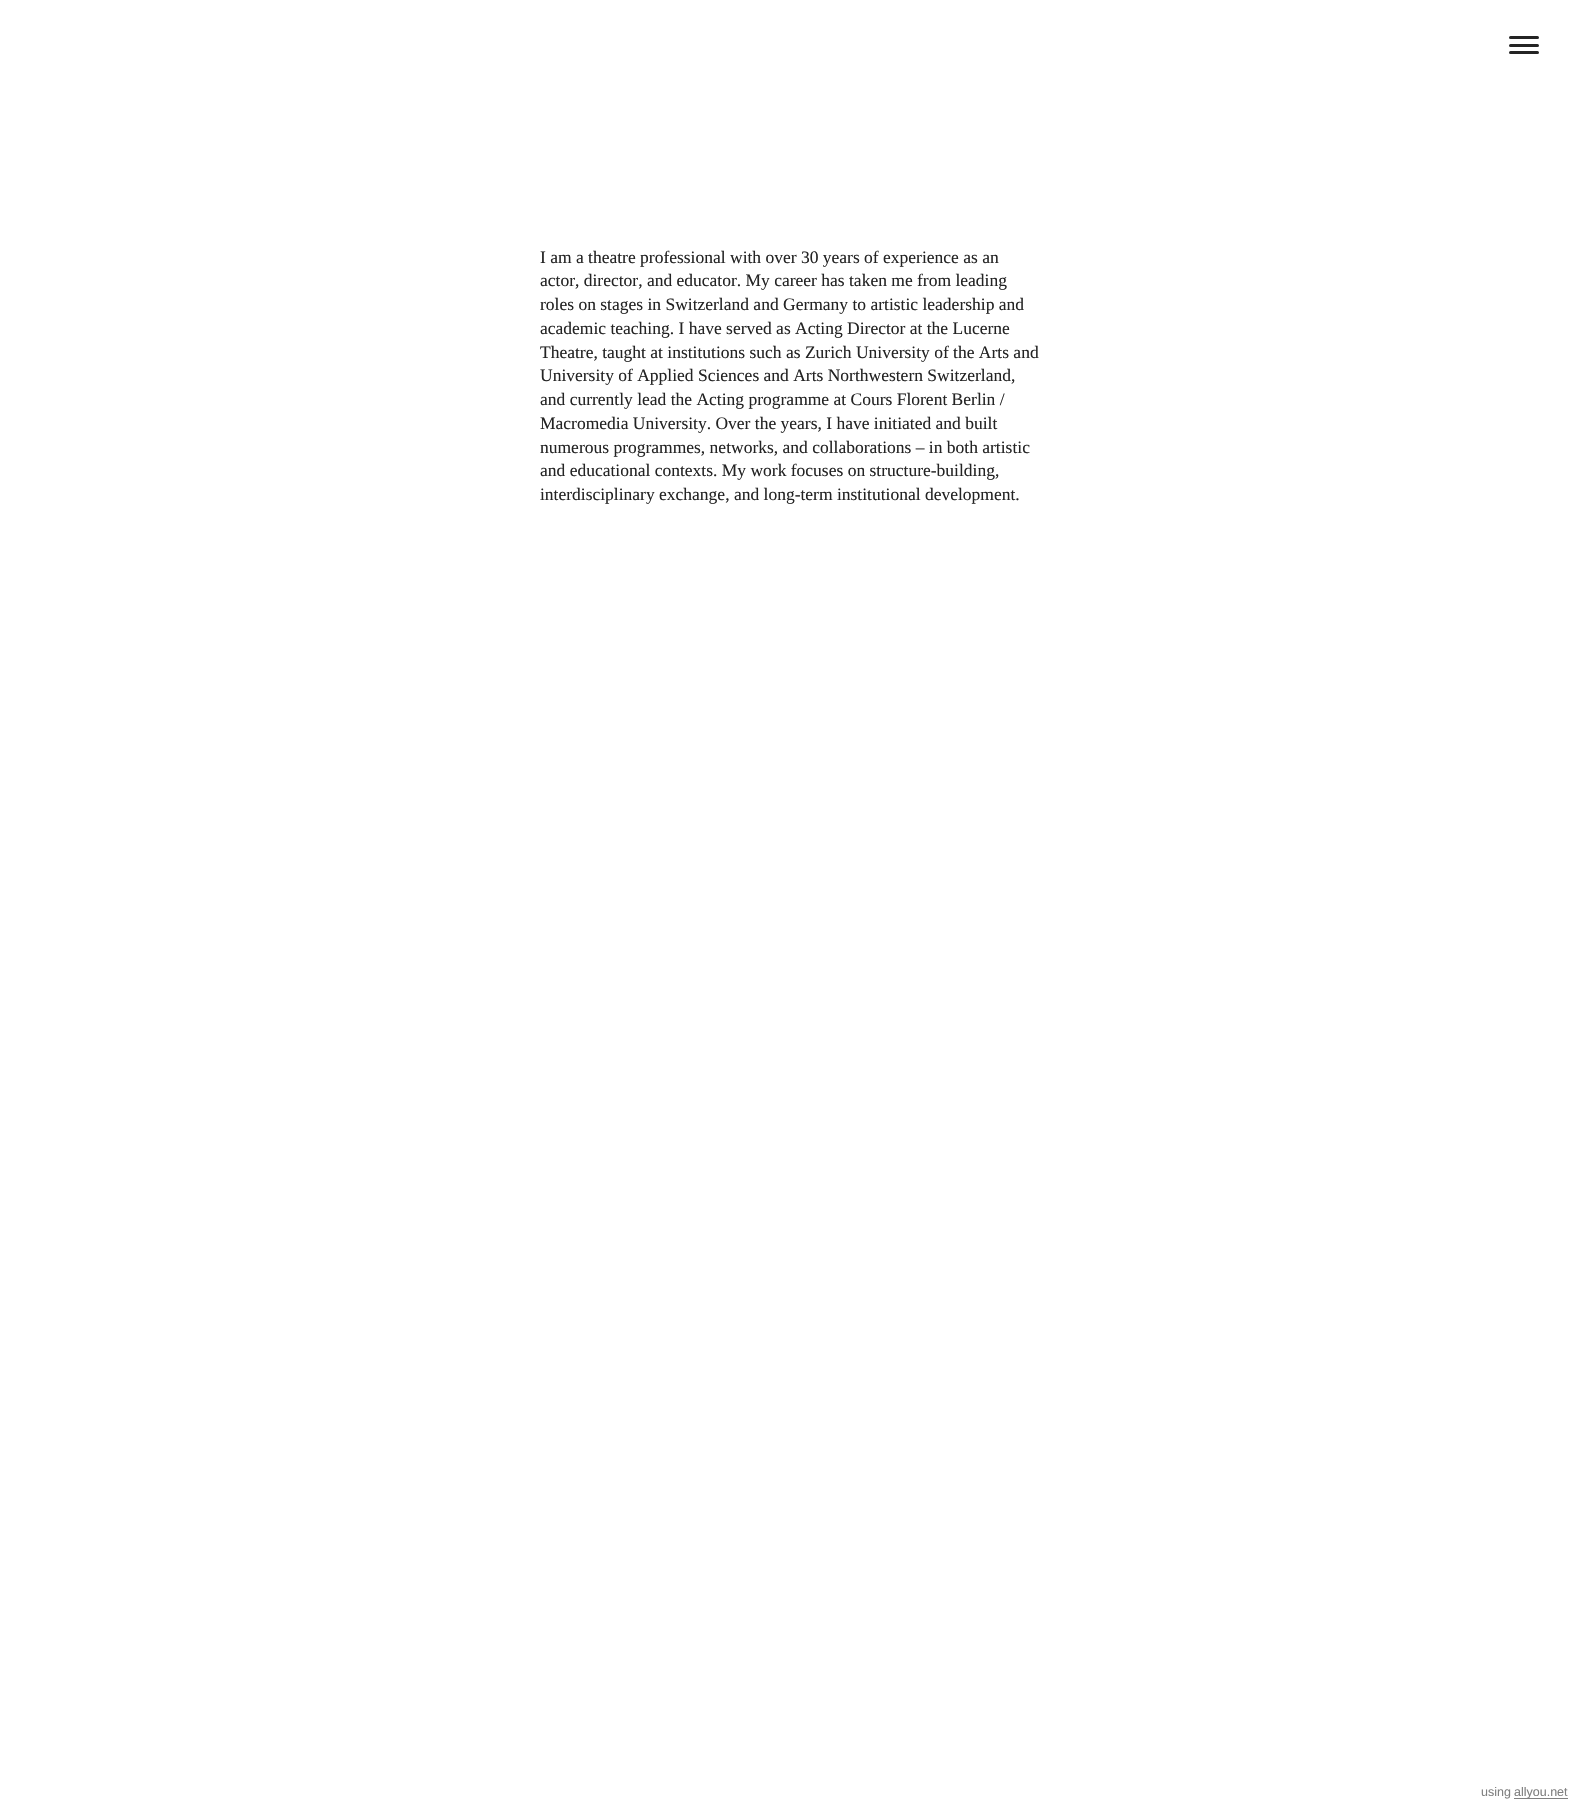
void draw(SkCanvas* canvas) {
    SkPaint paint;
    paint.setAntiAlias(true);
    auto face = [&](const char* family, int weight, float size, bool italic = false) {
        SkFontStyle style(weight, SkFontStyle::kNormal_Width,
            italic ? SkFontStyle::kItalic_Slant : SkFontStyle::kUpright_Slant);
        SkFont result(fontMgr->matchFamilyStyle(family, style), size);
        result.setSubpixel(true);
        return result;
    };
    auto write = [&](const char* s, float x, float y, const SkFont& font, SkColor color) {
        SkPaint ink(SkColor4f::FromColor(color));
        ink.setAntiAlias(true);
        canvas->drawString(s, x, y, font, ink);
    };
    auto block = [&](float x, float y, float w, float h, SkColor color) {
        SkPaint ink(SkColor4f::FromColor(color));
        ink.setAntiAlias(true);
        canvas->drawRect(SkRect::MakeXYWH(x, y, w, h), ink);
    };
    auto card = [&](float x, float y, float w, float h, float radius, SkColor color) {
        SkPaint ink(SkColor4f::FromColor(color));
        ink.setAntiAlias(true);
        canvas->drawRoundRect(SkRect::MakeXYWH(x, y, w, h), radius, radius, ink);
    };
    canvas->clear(SK_ColorWHITE);
    card(1509, 36, 30, 3, 1.5f, SkColorSetRGB(36, 36, 36));
    card(1509, 44, 30, 3, 1.5f, SkColorSetRGB(36, 36, 36));
    card(1509, 51, 30, 3, 1.5f, SkColorSetRGB(36, 36, 36));
    auto kFont1 = face("Liberation Serif", 400, 17.5f);
    write("I am a theatre professional with over 30 years of experience as an", 540, 263, kFont1, SkColorSetRGB(36, 36, 36));
    write("actor, director, and educator. My career has taken me from leading", 540, 286, kFont1, SkColorSetRGB(36, 36, 36));
    write("roles on stages in Switzerland and Germany to artistic leadership and", 540, 310, kFont1, SkColorSetRGB(36, 36, 36));
    write("academic teaching. I have served as Acting Director at the Lucerne", 540, 334, kFont1, SkColorSetRGB(36, 36, 36));
    write("Theatre, taught at institutions such as Zurich University of the Arts and", 540, 358, kFont1, SkColorSetRGB(36, 36, 36));
    write("University of Applied Sciences and Arts Northwestern Switzerland,", 540, 381, kFont1, SkColorSetRGB(36, 36, 36));
    write("and currently lead the Acting programme at Cours Florent Berlin /", 540, 405, kFont1, SkColorSetRGB(36, 36, 36));
    write("Macromedia University. Over the years, I have initiated and built", 540, 429, kFont1, SkColorSetRGB(36, 36, 36));
    write("numerous programmes, networks, and collaborations – in both artistic", 540, 453, kFont1, SkColorSetRGB(36, 36, 36));
    write("and educational contexts. My work focuses on structure-building,", 540, 476, kFont1, SkColorSetRGB(36, 36, 36));
    write("interdisciplinary exchange, and long-term institutional development.", 540, 500, kFont1, SkColorSetRGB(36, 36, 36));
    auto kFont2 = face("Liberation Sans", 400, 12.5f);
    write("using", 1481, 1796, kFont2, SkColorSetRGB(128, 128, 128));
    block(1514, 1798, 54, 1, SkColorSetRGB(128, 128, 128));
    write("allyou.net", 1514, 1796, kFont2, SkColorSetRGB(128, 128, 128));
}
